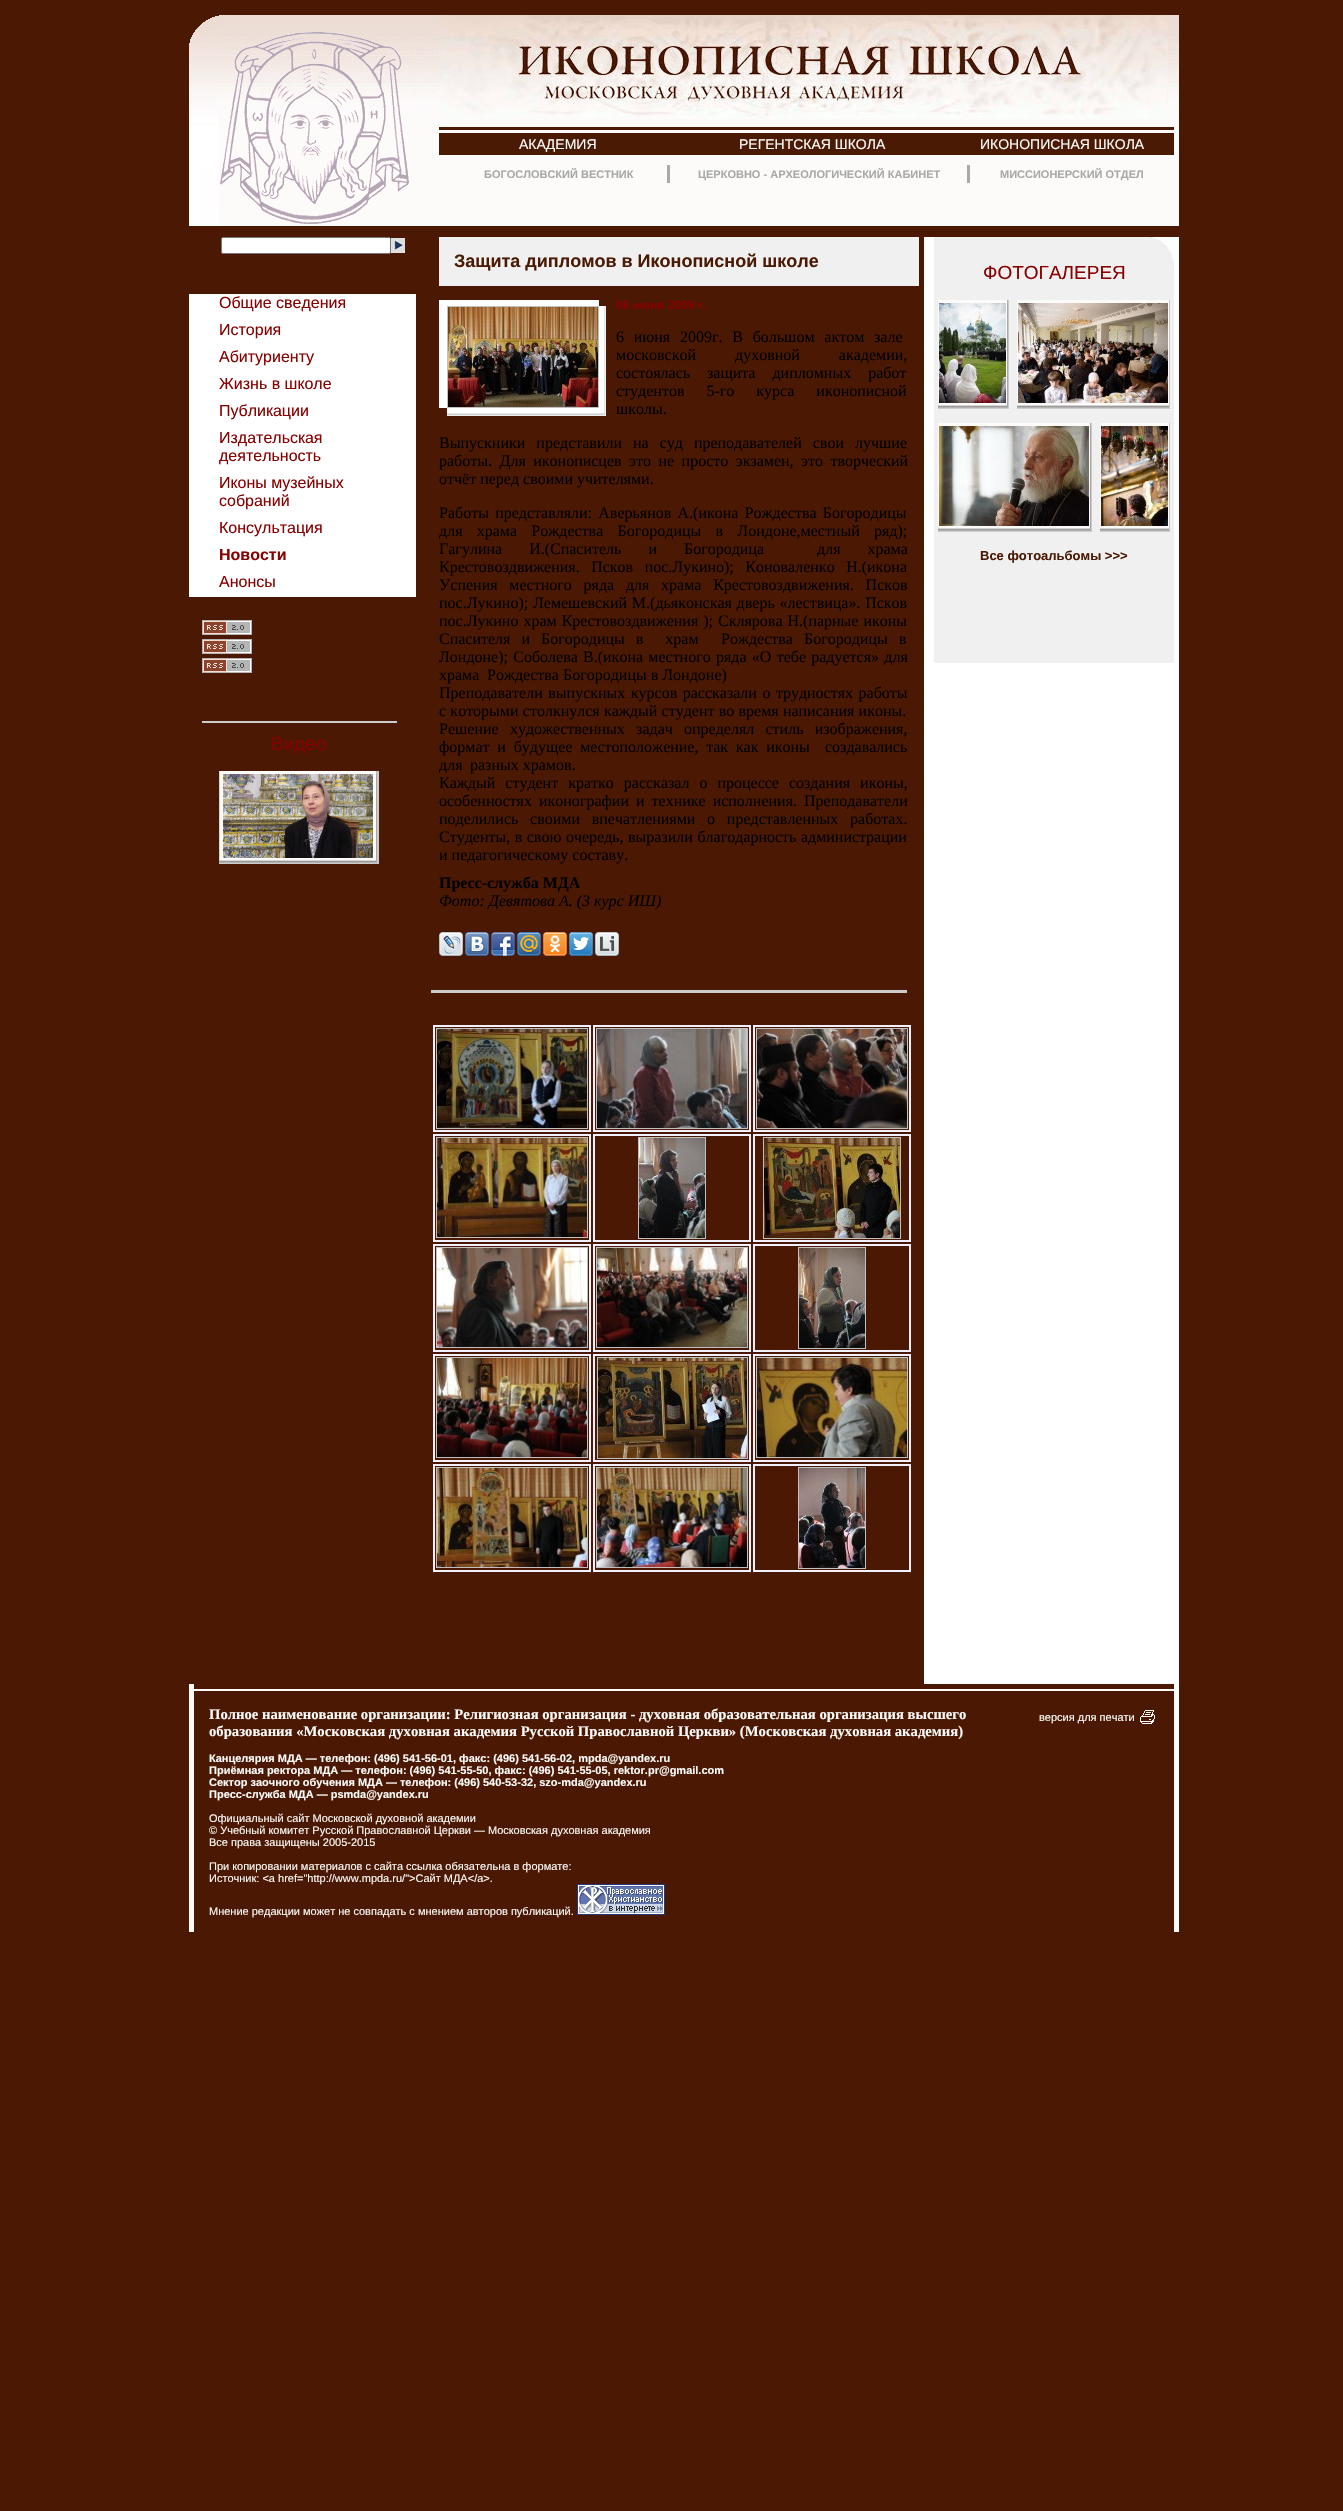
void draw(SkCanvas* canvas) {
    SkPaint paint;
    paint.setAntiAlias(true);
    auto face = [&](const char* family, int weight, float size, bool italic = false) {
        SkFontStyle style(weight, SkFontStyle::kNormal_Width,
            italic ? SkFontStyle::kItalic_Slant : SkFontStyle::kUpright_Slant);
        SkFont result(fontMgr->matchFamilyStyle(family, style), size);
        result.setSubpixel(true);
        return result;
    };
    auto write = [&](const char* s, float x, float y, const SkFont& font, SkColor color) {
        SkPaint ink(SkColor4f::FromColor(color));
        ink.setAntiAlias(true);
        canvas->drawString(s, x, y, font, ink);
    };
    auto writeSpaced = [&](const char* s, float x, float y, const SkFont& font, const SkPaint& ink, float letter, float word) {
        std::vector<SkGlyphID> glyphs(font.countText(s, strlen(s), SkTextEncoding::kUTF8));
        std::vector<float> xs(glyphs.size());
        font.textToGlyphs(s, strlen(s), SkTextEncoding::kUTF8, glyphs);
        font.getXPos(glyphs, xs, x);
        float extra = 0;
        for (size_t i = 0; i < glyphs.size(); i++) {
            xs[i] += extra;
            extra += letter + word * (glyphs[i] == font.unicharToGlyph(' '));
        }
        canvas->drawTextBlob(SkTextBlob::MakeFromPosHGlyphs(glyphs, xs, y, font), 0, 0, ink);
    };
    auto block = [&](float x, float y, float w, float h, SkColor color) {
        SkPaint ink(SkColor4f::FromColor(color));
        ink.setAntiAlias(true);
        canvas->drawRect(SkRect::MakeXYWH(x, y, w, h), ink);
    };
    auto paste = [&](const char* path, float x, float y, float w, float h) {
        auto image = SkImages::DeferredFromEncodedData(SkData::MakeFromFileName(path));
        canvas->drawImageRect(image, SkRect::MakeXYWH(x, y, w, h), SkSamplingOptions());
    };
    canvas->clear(SkColorSetRGB(74, 24, 3));
    paste("pic1.png", 189, 16, 30, 210);
    block(219, 111, 960, 115, SkColorSetRGB(252, 251, 249));
    paste("pic2.png", 219, 15, 220, 96);
    paste("pic3.png", 220, 32, 189, 192);
    paste("pic4.png", 1168, 15, 11, 96);
    paste("pic5.png", 439, 15, 729, 103);
    block(439, 127, 735, 28, SkColorSetRGB(74, 26, 4));
    block(439, 130, 735, 3, SkColorSetRGB(252, 251, 249));
    auto kFont1 = face("Liberation Sans", 400, 14);
    write("АКАДЕМИЯ", 519, 149, kFont1, SkColorSetRGB(252, 251, 249));
    write("РЕГЕНТСКАЯ ШКОЛА", 739, 149, kFont1, SkColorSetRGB(252, 251, 249));
    write("ИКОНОПИСНАЯ ШКОЛА", 980, 149, kFont1, SkColorSetRGB(252, 251, 249));
    auto kFont2 = face("Liberation Sans", 700, 11);
    write("БОГОСЛОВСКИЙ ВЕСТНИК", 484, 178, kFont2, SkColorSetRGB(169, 169, 169));
    block(667, 165, 3, 18, SkColorSetRGB(169, 169, 169));
    write("ЦЕРКОВНО - АРХЕОЛОГИЧЕСКИЙ КАБИНЕТ", 698, 178, kFont2, SkColorSetRGB(169, 169, 169));
    block(967, 165, 3, 18, SkColorSetRGB(169, 169, 169));
    write("МИССИОНЕРСКИЙ ОТДЕЛ", 1000, 178, kFont2, SkColorSetRGB(169, 169, 169));
    paint.setColor(SK_ColorWHITE);
    canvas->drawRoundRect(SkRect::MakeXYWH(221.5f, 237.5f, 169, 16), 1.5f, 1.5f, paint);
    paint.setStyle(SkPaint::kStroke_Style);
    paint.setStrokeWidth(1);
    paint.setColor(SkColorSetRGB(118, 118, 118));
    canvas->drawRoundRect(SkRect::MakeXYWH(221.5f, 237.5f, 169, 16), 1.5f, 1.5f, paint);
    paste("pic6.png", 391, 238, 14, 15);
    block(189, 294, 227, 303, SK_ColorWHITE);
    auto kFont3 = face("Liberation Sans", 400, 16);
    write("Общие сведения", 219, 308, kFont3, SkColorSetRGB(136, 0, 0));
    write("История", 219, 335, kFont3, SkColorSetRGB(136, 0, 0));
    write("Абитуриенту", 219, 362, kFont3, SkColorSetRGB(136, 0, 0));
    write("Жизнь в школе", 219, 389, kFont3, SkColorSetRGB(136, 0, 0));
    write("Публикации", 219, 416, kFont3, SkColorSetRGB(136, 0, 0));
    write("Издательская", 219, 443, kFont3, SkColorSetRGB(136, 0, 0));
    write("деятельность", 219, 461, kFont3, SkColorSetRGB(136, 0, 0));
    write("Иконы музейных", 219, 488, kFont3, SkColorSetRGB(136, 0, 0));
    write("собраний", 219, 506, kFont3, SkColorSetRGB(136, 0, 0));
    write("Консультация", 219, 533, kFont3, SkColorSetRGB(136, 0, 0));
    auto kFont4 = face("Liberation Sans", 700, 16);
    write("Новости", 219, 560, kFont4, SkColorSetRGB(136, 0, 0));
    write("Анонсы", 219, 587, kFont3, SkColorSetRGB(136, 0, 0));
    paste("pic7.png", 202, 620, 50, 15);
    paste("pic7.png", 202, 639, 50, 15);
    paste("pic7.png", 202, 658, 50, 15);
    block(202, 721, 195, 2, SkColorSetRGB(204, 204, 204));
    auto kFont5 = face("Liberation Sans", 400, 19);
    write("Видео", 271, 750, kFont5, SkColorSetRGB(136, 0, 0));
    block(220, 771, 156, 89, SkColorSetRGB(252, 251, 249));
    block(219, 771, 1, 90, SkColorSetRGB(213, 213, 212));
    block(376, 771, 1, 3, SkColorSetRGB(180, 180, 180));
    block(377, 771, 2, 92, SkColorSetRGB(203, 202, 201));
    paste("pic8.png", 223, 774, 150, 84);
    block(376, 774, 1, 88, SkColorSetRGB(169, 168, 168));
    block(220, 860, 156, 1, SkColorSetRGB(213, 213, 212));
    block(219, 861, 157, 1, SkColorSetRGB(156, 155, 155));
    block(219, 862, 158, 1, SkColorSetRGB(179, 178, 177));
    block(219, 863, 160, 1, SkColorSetRGB(205, 204, 203));
    block(439, 237, 480, 49, SkColorSetRGB(240, 240, 240));
    auto kFont6 = face("Liberation Sans", 700, 18);
    write("Защита дипломов в Иконописной школе", 454, 267, kFont6, SkColorSetRGB(74, 26, 4));
    block(439, 300, 8, 108, SK_ColorWHITE);
    paint.setColor(SkColorSetRGB(192, 192, 192));
    canvas->drawRect(SkRect::MakeXYWH(447.5f, 306.5f, 151, 101), paint);
    paste("pic9.png", 448, 307, 150, 100);
    paste("pic10.png", 599, 306, 7, 102);
    block(447, 300, 152, 6, SK_ColorWHITE);
    paste("pic11.png", 447, 408, 152, 8);
    paste("pic12.png", 599, 408, 7, 8);
    auto kFont7 = face("Liberation Sans", 700, 12);
    write("06 июня 2009 г.", 616, 309, kFont7, SkColorSetRGB(136, 0, 0));
    auto kFont8 = face("Liberation Serif", 400, 16);
    paint.setStyle(SkPaint::kFill_Style);
    paint.setColor(SK_ColorBLACK);
    writeSpaced("6 июня 2009г. В большом актом зале", 616, 342, kFont8, paint, 0, 5.75f);
    writeSpaced("московской духовной академии,", 616, 360, kFont8, paint, 0, 35);
    writeSpaced("состоялась защита дипломных работ", 616, 378, kFont8, paint, 0, 13);
    writeSpaced("студентов 5-го курса иконописной", 616, 396, kFont8, paint, 0, 18);
    write("школы.", 616, 414, kFont8, SK_ColorBLACK);
    writeSpaced("Выпускники представили на суд преподавателей свои лучшие", 439, 448, kFont8, paint, 0, 7);
    writeSpaced("работы. Для иконописцев это не просто экзамен, это творческий", 439, 466, kFont8, paint, 0, 3.5f);
    write("отчёт перед своими учителями.", 439, 484, kFont8, SK_ColorBLACK);
    writeSpaced("Работы представляли: Аверьянов А.(икона Рождества Богородицы", 439, 518, kFont8, paint, 0, 2.25f);
    writeSpaced("для храма Рождества Богородицы в Лондоне,местный ряд);", 439, 536, kFont8, paint, 0, 10.25f);
    writeSpaced("Гагулина И.(Спаситель и Богородица", 439, 554, kFont8, paint, 0, 23);
    writeSpaced("для храма", 817, 554, kFont8, paint, 0, 23);
    writeSpaced("Крестовоздвижения. Псков пос.Лукино); Коноваленко Н.(икона", 439, 572, kFont8, paint, 0, 7.5f);
    writeSpaced("Успения местного ряда для храма Крестовоздвижения. Псков", 439, 590, kFont8, paint, 0, 7.75f);
    writeSpaced("пос.Лукино); Лемешевский М.(дьяконская дверь «лествица». Псков", 439, 608, kFont8, paint, 0, 0.75f);
    writeSpaced("пос.Лукино храм Крестовоздвижения ); Склярова Н.(парные иконы", 439, 626, kFont8, paint, 0, 1);
    writeSpaced("Спасителя и Богородицы в  храм", 439, 644, kFont8, paint, 0, 7);
    writeSpaced("Рождества Богородицы в", 721, 644, kFont8, paint, 0, 7);
    writeSpaced("Лондоне); Соболева В.(икона местного ряда «О тебе радуется» для", 439, 662, kFont8, paint, 0, 1.25f);
    write("храма", 439, 680, kFont8, SK_ColorBLACK);
    write("Рождества Богородицы в Лондоне)", 487, 680, kFont8, SK_ColorBLACK);
    writeSpaced("Преподаватели выпускных курсов рассказали о трудностях работы", 439, 698, kFont8, paint, 0, 1.5f);
    writeSpaced("с которыми столкнулся каждый студент во время написания иконы.", 439, 716, kFont8, paint, 0, 0.25f);
    writeSpaced("Решение художественных задач определял стиль изображения,", 439, 734, kFont8, paint, 0, 7.25f);
    writeSpaced("формат и будущее местоположение, так как иконы", 439, 752, kFont8, paint, 0, 3.75f);
    write("создавались", 825, 752, kFont8, SK_ColorBLACK);
    write("для", 439, 770, kFont8, SK_ColorBLACK);
    write("разных храмов.", 470, 770, kFont8, SK_ColorBLACK);
    writeSpaced("Каждый студент кратко рассказал о процессе создания иконы,", 439, 788, kFont8, paint, 0, 6);
    writeSpaced("особенностях иконографии и технике исполнения. Преподаватели", 439, 806, kFont8, paint, 0, 3);
    writeSpaced("поделились своими впечатлениями о представленных работах.", 439, 824, kFont8, paint, 0, 7.75f);
    writeSpaced("Студенты, в свою очередь, выразили благодарность администрации", 439, 842, kFont8, paint, 0, 0.5f);
    write("и педагогическому составу.", 439, 860, kFont8, SK_ColorBLACK);
    auto kFont9 = face("Liberation Serif", 700, 16);
    write("Пресс-служба МДА", 439, 888, kFont9, SK_ColorBLACK);
    auto kFont10 = face("Liberation Serif", 400, 16, true);
    write("Фото: Девятова А. (3 курс ИШ)", 439, 906, kFont10, SK_ColorBLACK);
    paste("pic13.png", 439, 932, 24, 24);
    paste("pic14.png", 465, 932, 24, 24);
    paste("pic15.png", 491, 932, 24, 24);
    paste("pic16.png", 517, 932, 24, 24);
    paste("pic17.png", 543, 932, 24, 24);
    paste("pic18.png", 569, 932, 24, 24);
    paste("pic19.png", 595, 932, 24, 24);
    block(431, 990, 476, 3, SkColorSetRGB(204, 204, 204));
    paint.setStyle(SkPaint::kStroke_Style);
    paint.setStrokeWidth(2);
    paint.setColor(SkColorSetRGB(240, 240, 255));
    canvas->drawRect(SkRect::MakeXYWH(434, 1026, 156, 105), paint);
    paint.setStrokeWidth(1);
    paint.setColor(SkColorSetRGB(192, 192, 192));
    canvas->drawRect(SkRect::MakeXYWH(436.5f, 1028.5f, 151, 100), paint);
    paste("pic20.png", 437, 1029, 150, 99);
    paint.setStrokeWidth(2);
    paint.setColor(SkColorSetRGB(240, 240, 255));
    canvas->drawRect(SkRect::MakeXYWH(594, 1026, 156, 105), paint);
    paint.setStrokeWidth(1);
    paint.setColor(SkColorSetRGB(192, 192, 192));
    canvas->drawRect(SkRect::MakeXYWH(596.5f, 1028.5f, 151, 100), paint);
    paste("pic21.png", 597, 1029, 150, 99);
    paint.setStrokeWidth(2);
    paint.setColor(SkColorSetRGB(240, 240, 255));
    canvas->drawRect(SkRect::MakeXYWH(754, 1026, 156, 105), paint);
    paint.setStrokeWidth(1);
    paint.setColor(SkColorSetRGB(192, 192, 192));
    canvas->drawRect(SkRect::MakeXYWH(756.5f, 1028.5f, 151, 100), paint);
    paste("pic22.png", 757, 1029, 150, 99);
    paint.setStrokeWidth(2);
    paint.setColor(SkColorSetRGB(240, 240, 255));
    canvas->drawRect(SkRect::MakeXYWH(434, 1135, 156, 106), paint);
    paint.setStrokeWidth(1);
    paint.setColor(SkColorSetRGB(192, 192, 192));
    canvas->drawRect(SkRect::MakeXYWH(436.5f, 1137.5f, 151, 100), paint);
    paste("pic23.png", 437, 1138, 150, 99);
    paint.setStrokeWidth(2);
    paint.setColor(SkColorSetRGB(240, 240, 255));
    canvas->drawRect(SkRect::MakeXYWH(594, 1135, 156, 106), paint);
    paint.setStrokeWidth(1);
    paint.setColor(SkColorSetRGB(192, 192, 192));
    canvas->drawRect(SkRect::MakeXYWH(638.5f, 1137.5f, 67, 101), paint);
    paste("pic24.png", 639, 1138, 66, 100);
    paint.setStrokeWidth(2);
    paint.setColor(SkColorSetRGB(240, 240, 255));
    canvas->drawRect(SkRect::MakeXYWH(754, 1135, 156, 106), paint);
    paint.setStrokeWidth(1);
    paint.setColor(SkColorSetRGB(192, 192, 192));
    canvas->drawRect(SkRect::MakeXYWH(763.5f, 1137.5f, 137, 101), paint);
    paste("pic25.png", 764, 1138, 136, 100);
    paint.setStrokeWidth(2);
    paint.setColor(SkColorSetRGB(240, 240, 255));
    canvas->drawRect(SkRect::MakeXYWH(434, 1245, 156, 106), paint);
    paint.setStrokeWidth(1);
    paint.setColor(SkColorSetRGB(192, 192, 192));
    canvas->drawRect(SkRect::MakeXYWH(436.5f, 1247.5f, 151, 100), paint);
    paste("pic26.png", 437, 1248, 150, 99);
    paint.setStrokeWidth(2);
    paint.setColor(SkColorSetRGB(240, 240, 255));
    canvas->drawRect(SkRect::MakeXYWH(594, 1245, 156, 106), paint);
    paint.setStrokeWidth(1);
    paint.setColor(SkColorSetRGB(192, 192, 192));
    canvas->drawRect(SkRect::MakeXYWH(596.5f, 1247.5f, 151, 100), paint);
    paste("pic27.png", 597, 1248, 150, 99);
    paint.setStrokeWidth(2);
    paint.setColor(SkColorSetRGB(240, 240, 255));
    canvas->drawRect(SkRect::MakeXYWH(754, 1245, 156, 106), paint);
    paint.setStrokeWidth(1);
    paint.setColor(SkColorSetRGB(192, 192, 192));
    canvas->drawRect(SkRect::MakeXYWH(798.5f, 1247.5f, 67, 101), paint);
    paste("pic28.png", 799, 1248, 66, 100);
    paint.setStrokeWidth(2);
    paint.setColor(SkColorSetRGB(240, 240, 255));
    canvas->drawRect(SkRect::MakeXYWH(434, 1355, 156, 106), paint);
    paint.setStrokeWidth(1);
    paint.setColor(SkColorSetRGB(192, 192, 192));
    canvas->drawRect(SkRect::MakeXYWH(436.5f, 1357.5f, 151, 100), paint);
    paste("pic29.png", 437, 1358, 150, 99);
    paint.setStrokeWidth(2);
    paint.setColor(SkColorSetRGB(240, 240, 255));
    canvas->drawRect(SkRect::MakeXYWH(594, 1355, 156, 106), paint);
    paint.setStrokeWidth(1);
    paint.setColor(SkColorSetRGB(192, 192, 192));
    canvas->drawRect(SkRect::MakeXYWH(597.5f, 1357.5f, 150, 101), paint);
    paste("pic30.png", 598, 1358, 149, 100);
    paint.setStrokeWidth(2);
    paint.setColor(SkColorSetRGB(240, 240, 255));
    canvas->drawRect(SkRect::MakeXYWH(754, 1355, 156, 106), paint);
    paint.setStrokeWidth(1);
    paint.setColor(SkColorSetRGB(192, 192, 192));
    canvas->drawRect(SkRect::MakeXYWH(756.5f, 1357.5f, 151, 100), paint);
    paste("pic31.png", 757, 1358, 150, 99);
    paint.setStrokeWidth(2);
    paint.setColor(SkColorSetRGB(240, 240, 255));
    canvas->drawRect(SkRect::MakeXYWH(434, 1465, 156, 106), paint);
    paint.setStrokeWidth(1);
    paint.setColor(SkColorSetRGB(192, 192, 192));
    canvas->drawRect(SkRect::MakeXYWH(436.5f, 1467.5f, 151, 100), paint);
    paste("pic32.png", 437, 1468, 150, 99);
    paint.setStrokeWidth(2);
    paint.setColor(SkColorSetRGB(240, 240, 255));
    canvas->drawRect(SkRect::MakeXYWH(594, 1465, 156, 106), paint);
    paint.setStrokeWidth(1);
    paint.setColor(SkColorSetRGB(192, 192, 192));
    canvas->drawRect(SkRect::MakeXYWH(596.5f, 1467.5f, 151, 100), paint);
    paste("pic33.png", 597, 1468, 150, 99);
    paint.setStrokeWidth(2);
    paint.setColor(SkColorSetRGB(240, 240, 255));
    canvas->drawRect(SkRect::MakeXYWH(754, 1465, 156, 106), paint);
    paint.setStrokeWidth(1);
    paint.setColor(SkColorSetRGB(192, 192, 192));
    canvas->drawRect(SkRect::MakeXYWH(798.5f, 1467.5f, 67, 101), paint);
    paste("pic34.png", 799, 1468, 66, 100);
    block(924, 237, 255, 1447, SK_ColorWHITE);
    block(934, 237, 240, 426, SkColorSetRGB(240, 240, 240));
    paste("pic35.png", 1150, 237, 24, 28);
    write("ФОТОГАЛЕРЕЯ", 983, 279, kFont5, SkColorSetRGB(136, 0, 0));
    block(938, 300, 69, 105, SkColorSetRGB(252, 251, 249));
    block(1007, 300, 1, 3, SkColorSetRGB(180, 180, 180));
    block(1008, 300, 1, 108, SkColorSetRGB(203, 202, 201));
    paste("pic36.png", 939, 303, 67, 100);
    block(1007, 303, 1, 104, SkColorSetRGB(169, 168, 168));
    block(938, 405, 69, 1, SkColorSetRGB(213, 213, 212));
    block(938, 406, 69, 1, SkColorSetRGB(156, 155, 155));
    block(938, 407, 70, 1, SkColorSetRGB(179, 178, 177));
    block(938, 408, 71, 1, SkColorSetRGB(205, 204, 203));
    block(1017, 300, 152, 105, SkColorSetRGB(252, 251, 249));
    paste("pic37.png", 1018, 303, 150, 100);
    block(1169, 300, 1, 108, SkColorSetRGB(203, 202, 201));
    block(1017, 405, 152, 1, SkColorSetRGB(213, 213, 212));
    block(1017, 406, 152, 1, SkColorSetRGB(156, 155, 155));
    block(1017, 407, 152, 1, SkColorSetRGB(179, 178, 177));
    block(1017, 408, 153, 1, SkColorSetRGB(205, 204, 203));
    block(938, 423, 152, 105, SkColorSetRGB(252, 251, 249));
    block(1090, 423, 1, 3, SkColorSetRGB(180, 180, 180));
    block(1091, 423, 1, 108, SkColorSetRGB(203, 202, 201));
    paste("pic38.png", 939, 426, 150, 100);
    block(1090, 426, 1, 104, SkColorSetRGB(169, 168, 168));
    block(938, 528, 152, 1, SkColorSetRGB(213, 213, 212));
    block(938, 529, 152, 1, SkColorSetRGB(156, 155, 155));
    block(938, 530, 153, 1, SkColorSetRGB(179, 178, 177));
    block(938, 531, 154, 1, SkColorSetRGB(205, 204, 203));
    block(1100, 423, 69, 105, SkColorSetRGB(252, 251, 249));
    paste("pic39.png", 1101, 426, 67, 100);
    block(1169, 423, 1, 108, SkColorSetRGB(203, 202, 201));
    block(1100, 528, 69, 1, SkColorSetRGB(213, 213, 212));
    block(1100, 529, 69, 1, SkColorSetRGB(156, 155, 155));
    block(1100, 530, 69, 1, SkColorSetRGB(179, 178, 177));
    block(1100, 531, 70, 1, SkColorSetRGB(205, 204, 203));
    auto kFont11 = face("Liberation Sans", 700, 13);
    write("Все фотоальбомы >>>", 980, 560, kFont11, SkColorSetRGB(74, 26, 4));
    block(189, 1684, 5, 248, SkColorSetRGB(252, 251, 249));
    block(194, 1689, 980, 2, SkColorSetRGB(252, 251, 249));
    auto kFont12 = face("Liberation Serif", 700, 14.67f);
    write("Полное наименование организации: Религиозная организация - духовная образовательная организация высшего", 209, 1719, kFont12, SkColorSetRGB(252, 251, 249));
    auto kFont13 = face("Liberation Sans", 400, 11);
    write("версия для печати", 1039, 1721, kFont13, SK_ColorWHITE);
    paste("pic40.png", 1140, 1710, 15, 14);
    write("образования «Московская духовная академия Русской Православной Церкви» (Московская духовная академия)", 209, 1736, kFont12, SkColorSetRGB(252, 251, 249));
    write("Канцелярия МДА — телефон: (496) 541-56-01, факс: (496) 541-56-02, mpda@yandex.ru", 209, 1762, kFont2, SkColorSetRGB(252, 251, 249));
    write("Приёмная ректора МДА — телефон: (496) 541-55-50, факс: (496) 541-55-05, rektor.pr@gmail.com", 209, 1774, kFont2, SkColorSetRGB(252, 251, 249));
    write("Сектор заочного обучения МДА — телефон: (496) 540-53-32, szo-mda@yandex.ru", 209, 1786, kFont2, SkColorSetRGB(252, 251, 249));
    write("Пресс-служба МДА — psmda@yandex.ru", 209, 1798, kFont2, SkColorSetRGB(252, 251, 249));
    write("Официальный сайт Московской духовной академии", 209, 1822, kFont13, SkColorSetRGB(252, 251, 249));
    write("© Учебный комитет Русской Православной Церкви — Московская духовная академия", 209, 1834, kFont13, SkColorSetRGB(252, 251, 249));
    write("Все права защищены 2005-2015", 209, 1846, kFont13, SkColorSetRGB(252, 251, 249));
    write("При копировании материалов с сайта ссылка обязательна в формате:", 209, 1870, kFont13, SkColorSetRGB(252, 251, 249));
    write("Источник: <a href=\"http://www.mpda.ru/\">Сайт МДА</a>.", 209, 1882, kFont13, SkColorSetRGB(252, 251, 249));
    write("Мнение редакции может не совпадать с мнением авторов публикаций.", 209, 1915, kFont13, SkColorSetRGB(252, 251, 249));
    paste("pic41.png", 577, 1884, 88, 31);
    block(1174, 1684, 5, 248, SkColorSetRGB(252, 251, 249));
}
